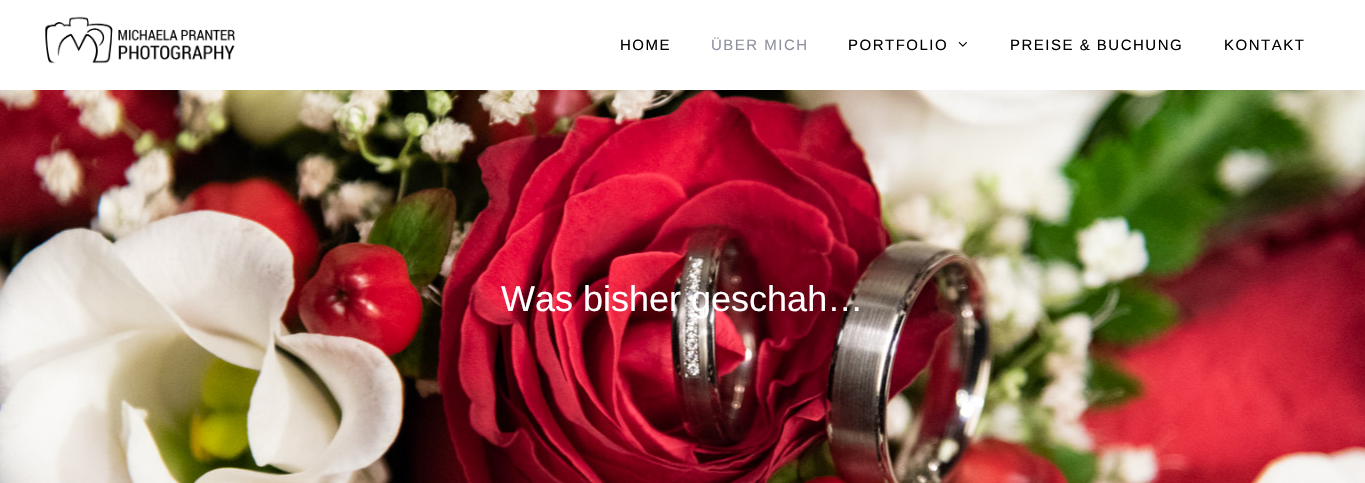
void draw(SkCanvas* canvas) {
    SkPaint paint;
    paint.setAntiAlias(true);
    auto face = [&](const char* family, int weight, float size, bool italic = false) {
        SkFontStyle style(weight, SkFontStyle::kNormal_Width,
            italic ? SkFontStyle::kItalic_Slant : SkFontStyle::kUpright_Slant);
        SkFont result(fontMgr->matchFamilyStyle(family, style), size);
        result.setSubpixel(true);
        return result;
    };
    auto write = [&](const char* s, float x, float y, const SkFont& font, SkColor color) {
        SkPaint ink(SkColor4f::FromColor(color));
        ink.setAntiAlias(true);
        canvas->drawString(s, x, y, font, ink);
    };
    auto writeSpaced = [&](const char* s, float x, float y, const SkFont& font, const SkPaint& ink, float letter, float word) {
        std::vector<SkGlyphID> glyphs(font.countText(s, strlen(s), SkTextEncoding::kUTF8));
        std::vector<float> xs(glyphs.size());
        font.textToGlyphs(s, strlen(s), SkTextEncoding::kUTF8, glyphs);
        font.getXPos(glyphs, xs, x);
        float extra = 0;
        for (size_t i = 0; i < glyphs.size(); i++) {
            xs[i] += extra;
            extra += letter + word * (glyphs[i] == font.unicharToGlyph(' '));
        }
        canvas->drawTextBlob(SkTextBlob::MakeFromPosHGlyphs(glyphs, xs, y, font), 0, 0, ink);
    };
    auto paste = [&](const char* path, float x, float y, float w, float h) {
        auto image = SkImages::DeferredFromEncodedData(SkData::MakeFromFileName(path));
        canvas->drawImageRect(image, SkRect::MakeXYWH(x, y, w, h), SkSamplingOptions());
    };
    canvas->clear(SK_ColorWHITE);
    paste("pic1.png", 45, 16, 190, 48);
    auto kFont1 = face("Liberation Sans", 400, 15);
    paint.setColor(SK_ColorBLACK);
    writeSpaced("HOME", 620, 50, kFont1, paint, 1.5f, 0);
    paint.setColor(SkColorSetRGB(143, 145, 158));
    writeSpaced("ÜBER MICH", 711, 50, kFont1, paint, 1.5f, 0);
    paint.setColor(SK_ColorBLACK);
    writeSpaced("PORTFOLIO", 848, 50, kFont1, paint, 1.5f, 0);
    paste("pic2.png", 958, 42, 9, 5);
    writeSpaced("PREISE & BUCHUNG", 1010, 50, kFont1, paint, 1.5f, 0);
    writeSpaced("KONTAKT", 1224, 50, kFont1, paint, 1.5f, 0);
    paste("pic3.png", 0, 90, 1365, 393);
    auto kFont2 = face("Liberation Sans", 400, 36);
    write("Was bisher geschah…", 501, 311, kFont2, SK_ColorWHITE);
}
